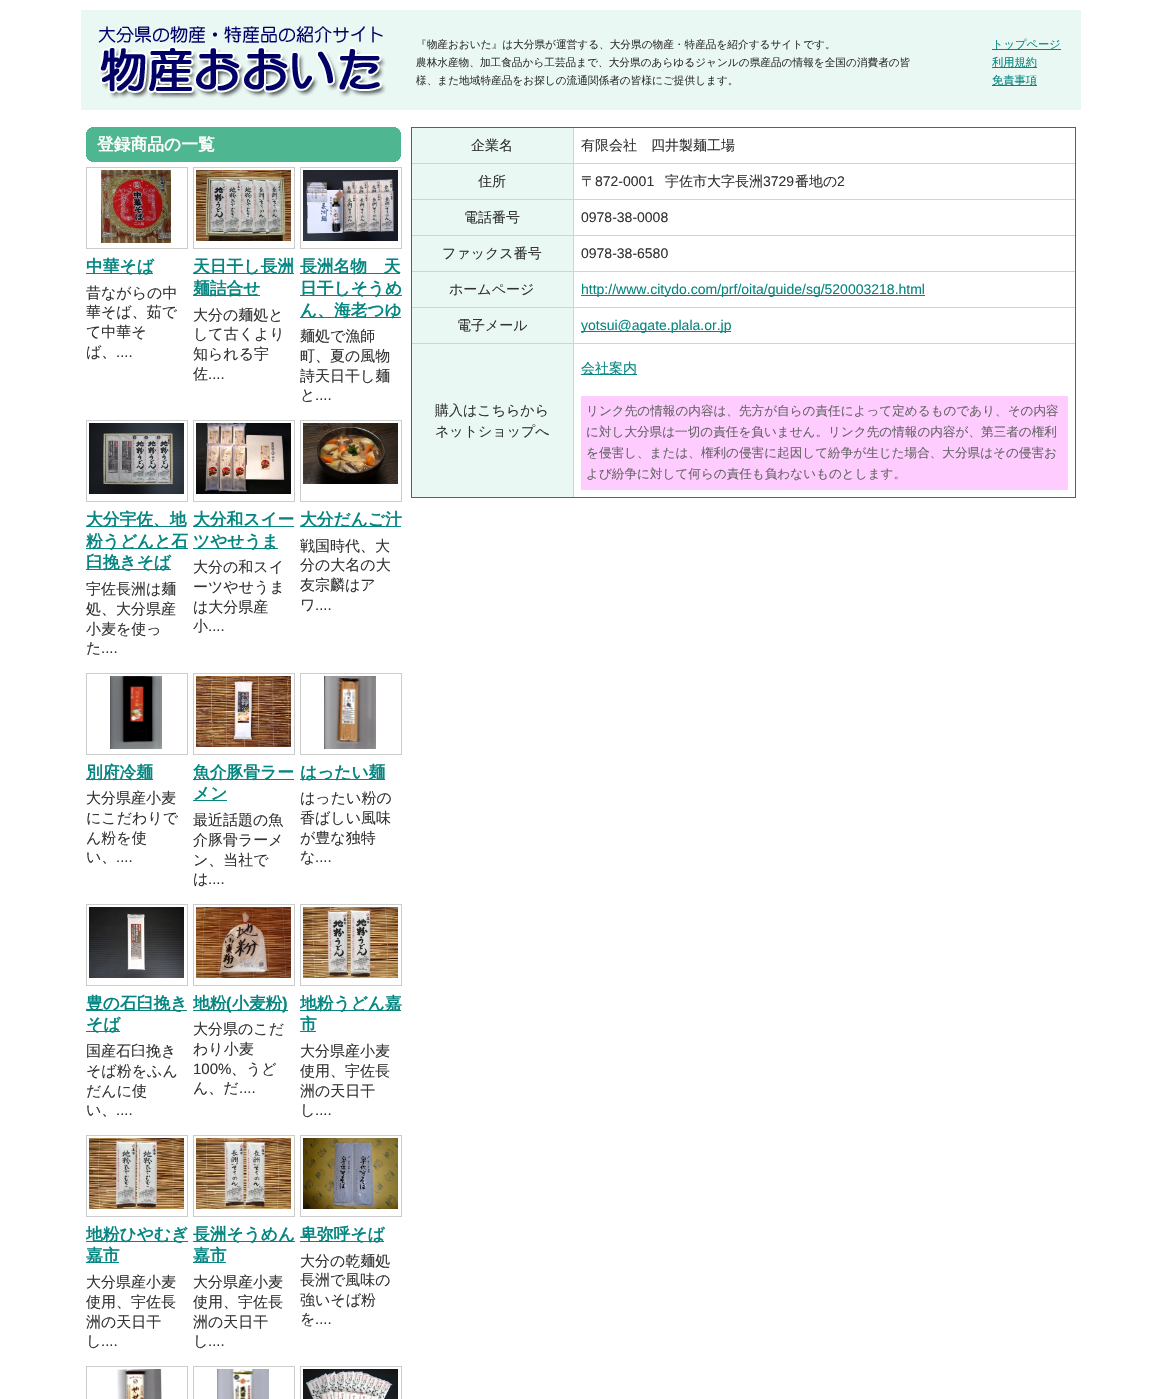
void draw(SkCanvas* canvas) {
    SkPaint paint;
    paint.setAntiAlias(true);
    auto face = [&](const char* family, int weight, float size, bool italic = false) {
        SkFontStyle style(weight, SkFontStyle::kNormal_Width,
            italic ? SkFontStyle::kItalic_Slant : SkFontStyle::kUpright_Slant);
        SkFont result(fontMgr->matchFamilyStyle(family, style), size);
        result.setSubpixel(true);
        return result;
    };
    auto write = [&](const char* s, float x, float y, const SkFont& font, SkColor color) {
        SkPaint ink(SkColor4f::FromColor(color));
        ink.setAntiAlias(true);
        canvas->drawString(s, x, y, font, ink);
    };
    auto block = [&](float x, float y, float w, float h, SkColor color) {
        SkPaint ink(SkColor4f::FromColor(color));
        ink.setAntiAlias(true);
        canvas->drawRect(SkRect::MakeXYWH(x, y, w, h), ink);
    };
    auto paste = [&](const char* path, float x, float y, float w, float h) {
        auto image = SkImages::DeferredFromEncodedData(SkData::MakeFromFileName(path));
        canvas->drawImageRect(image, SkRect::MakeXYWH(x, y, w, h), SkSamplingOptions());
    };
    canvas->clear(SK_ColorWHITE);
    block(81, 10, 1000, 100, SkColorSetRGB(233, 248, 243));
    paste("pic1.png", 98, 26, 288, 73);
    auto kFont1 = face("WenQuanYi Zen Hei", 500, 10.65f);
    write("『物産おおいた』は大分県が運営する、大分県の物産・特産品を紹介するサイトです。", 416, 48, kFont1, SkColorSetRGB(51, 51, 51));
    write("農林水産物、加工食品から工芸品まで、大分県のあらゆるジャンルの県産品の情報を全国の消費者の皆", 416, 66, kFont1, SkColorSetRGB(51, 51, 51));
    write("様、また地域特産品をお探しの流通関係者の皆様にご提供します。", 416, 84, kFont1, SkColorSetRGB(51, 51, 51));
    block(992, 49, 69, 1, SkColorSetRGB(6, 134, 129));
    auto kFont2 = face("WenQuanYi Zen Hei", 500, 11.25f);
    write("トップページ", 992, 48, kFont2, SkColorSetRGB(6, 134, 129));
    block(992, 67, 45, 1, SkColorSetRGB(6, 134, 129));
    write("利用規約", 992, 66, kFont2, SkColorSetRGB(6, 134, 129));
    block(992, 85, 45, 1, SkColorSetRGB(6, 134, 129));
    write("免責事項", 992, 84, kFont2, SkColorSetRGB(6, 134, 129));
    block(91, 127, 305, 1, SkColorSetRGB(78, 182, 145));
    block(89, 128, 309, 1, SkColorSetRGB(78, 182, 145));
    block(88, 129, 311, 1, SkColorSetRGB(78, 182, 145));
    block(87, 130, 313, 2, SkColorSetRGB(78, 182, 145));
    block(86, 132, 315, 25, SkColorSetRGB(78, 182, 145));
    auto kFont3 = face("WenQuanYi Zen Hei", 700, 16.75f);
    write("登録商品の一覧", 97, 150, kFont3, SK_ColorWHITE);
    block(87, 157, 313, 2, SkColorSetRGB(78, 182, 145));
    block(88, 159, 311, 1, SkColorSetRGB(78, 182, 145));
    block(89, 160, 309, 1, SkColorSetRGB(78, 182, 145));
    block(91, 161, 305, 1, SkColorSetRGB(78, 182, 145));
    paint.setStyle(SkPaint::kStroke_Style);
    paint.setStrokeWidth(1);
    paint.setColor(SkColorSetRGB(204, 204, 204));
    canvas->drawRect(SkRect::MakeXYWH(86.5f, 167.5f, 101, 81), paint);
    paste("pic2.png", 101, 170, 70, 73);
    block(86, 273, 67, 1, SkColorSetRGB(6, 134, 129));
    write("中華そば", 86, 272, kFont3, SkColorSetRGB(6, 134, 129));
    auto kFont4 = face("WenQuanYi Zen Hei", 500, 15);
    write("昔ながらの中", 86, 298, kFont4, SkColorSetRGB(51, 51, 51));
    write("華そば、茹で", 86, 317, kFont4, SkColorSetRGB(51, 51, 51));
    write("て中華そ", 86, 337, kFont4, SkColorSetRGB(51, 51, 51));
    write("ば、", 86, 357, kFont4, SkColorSetRGB(51, 51, 51));
    auto kFont5 = face("Liberation Sans", 400, 15);
    write("....", 116, 357, kFont5, SkColorSetRGB(51, 51, 51));
    canvas->drawRect(SkRect::MakeXYWH(193.5f, 167.5f, 101, 81), paint);
    paste("pic3.png", 196, 170, 95, 71);
    block(193, 273, 101, 1, SkColorSetRGB(6, 134, 129));
    write("天日干し長洲", 193, 272, kFont3, SkColorSetRGB(6, 134, 129));
    block(193, 295, 67, 1, SkColorSetRGB(6, 134, 129));
    write("麺詰合せ", 193, 294, kFont3, SkColorSetRGB(6, 134, 129));
    write("大分の麺処と", 193, 320, kFont4, SkColorSetRGB(51, 51, 51));
    write("して古くより", 193, 339, kFont4, SkColorSetRGB(51, 51, 51));
    write("知られる宇", 193, 359, kFont4, SkColorSetRGB(51, 51, 51));
    write("佐", 193, 379, kFont4, SkColorSetRGB(51, 51, 51));
    write("....", 208, 379, kFont5, SkColorSetRGB(51, 51, 51));
    canvas->drawRect(SkRect::MakeXYWH(300.5f, 167.5f, 101, 81), paint);
    paste("pic4.png", 303, 170, 95, 71);
    block(300, 273, 100, 1, SkColorSetRGB(6, 134, 129));
    write("長洲名物　天", 300, 272, kFont3, SkColorSetRGB(6, 134, 129));
    block(300, 295, 102, 1, SkColorSetRGB(6, 134, 129));
    write("日干しそうめ", 300, 294, kFont3, SkColorSetRGB(6, 134, 129));
    block(300, 317, 101, 1, SkColorSetRGB(6, 134, 129));
    write("ん、海老つゆ", 300, 316, kFont3, SkColorSetRGB(6, 134, 129));
    write("麺処で漁師", 300, 341, kFont4, SkColorSetRGB(51, 51, 51));
    write("町、夏の風物", 300, 361, kFont4, SkColorSetRGB(51, 51, 51));
    write("詩天日干し麺", 300, 381, kFont4, SkColorSetRGB(51, 51, 51));
    write("と", 300, 400, kFont4, SkColorSetRGB(51, 51, 51));
    write("....", 315, 400, kFont5, SkColorSetRGB(51, 51, 51));
    canvas->drawRect(SkRect::MakeXYWH(86.5f, 420.5f, 101, 81), paint);
    paste("pic5.png", 89, 423, 95, 71);
    block(86, 526, 100, 1, SkColorSetRGB(6, 134, 129));
    write("大分宇佐、地", 86, 525, kFont3, SkColorSetRGB(6, 134, 129));
    block(86, 548, 102, 1, SkColorSetRGB(6, 134, 129));
    write("粉うどんと石", 86, 547, kFont3, SkColorSetRGB(6, 134, 129));
    block(86, 569, 85, 1, SkColorSetRGB(6, 134, 129));
    write("臼挽きそば", 86, 568, kFont3, SkColorSetRGB(6, 134, 129));
    write("宇佐長洲は麺", 86, 594, kFont4, SkColorSetRGB(51, 51, 51));
    write("処、大分県産", 86, 614, kFont4, SkColorSetRGB(51, 51, 51));
    write("小麦を使っ", 86, 634, kFont4, SkColorSetRGB(51, 51, 51));
    write("た", 86, 653, kFont4, SkColorSetRGB(51, 51, 51));
    write("....", 101, 653, kFont5, SkColorSetRGB(51, 51, 51));
    canvas->drawRect(SkRect::MakeXYWH(193.5f, 420.5f, 101, 81), paint);
    paste("pic6.png", 196, 423, 95, 71);
    block(193, 526, 101, 1, SkColorSetRGB(6, 134, 129));
    write("大分和スイー", 193, 525, kFont3, SkColorSetRGB(6, 134, 129));
    block(193, 548, 85, 1, SkColorSetRGB(6, 134, 129));
    write("ツやせうま", 193, 547, kFont3, SkColorSetRGB(6, 134, 129));
    write("大分の和スイ", 193, 572, kFont4, SkColorSetRGB(51, 51, 51));
    write("ーツやせうま", 193, 592, kFont4, SkColorSetRGB(51, 51, 51));
    write("は大分県産", 193, 612, kFont4, SkColorSetRGB(51, 51, 51));
    write("小", 193, 631, kFont4, SkColorSetRGB(51, 51, 51));
    write("....", 208, 631, kFont5, SkColorSetRGB(51, 51, 51));
    canvas->drawRect(SkRect::MakeXYWH(300.5f, 420.5f, 101, 81), paint);
    paste("pic7.png", 303, 423, 95, 61);
    block(300, 526, 101, 1, SkColorSetRGB(6, 134, 129));
    write("大分だんご汁", 300, 525, kFont3, SkColorSetRGB(6, 134, 129));
    write("戦国時代、大", 300, 551, kFont4, SkColorSetRGB(51, 51, 51));
    write("分の大名の大", 300, 570, kFont4, SkColorSetRGB(51, 51, 51));
    write("友宗麟はア", 300, 590, kFont4, SkColorSetRGB(51, 51, 51));
    write("ワ", 300, 610, kFont4, SkColorSetRGB(51, 51, 51));
    write("....", 315, 610, kFont5, SkColorSetRGB(51, 51, 51));
    canvas->drawRect(SkRect::MakeXYWH(86.5f, 673.5f, 101, 81), paint);
    paste("pic8.png", 110, 676, 52, 73);
    block(86, 779, 67, 1, SkColorSetRGB(6, 134, 129));
    write("別府冷麺", 86, 778, kFont3, SkColorSetRGB(6, 134, 129));
    write("大分県産小麦", 86, 803, kFont4, SkColorSetRGB(51, 51, 51));
    write("にこだわりで", 86, 823, kFont4, SkColorSetRGB(51, 51, 51));
    write("ん粉を使", 86, 843, kFont4, SkColorSetRGB(51, 51, 51));
    write("い、", 86, 862, kFont4, SkColorSetRGB(51, 51, 51));
    write("....", 116, 862, kFont5, SkColorSetRGB(51, 51, 51));
    canvas->drawRect(SkRect::MakeXYWH(193.5f, 673.5f, 101, 81), paint);
    paste("pic9.png", 196, 676, 95, 71);
    block(193, 779, 101, 1, SkColorSetRGB(6, 134, 129));
    write("魚介豚骨ラー", 193, 778, kFont3, SkColorSetRGB(6, 134, 129));
    block(193, 800, 34, 1, SkColorSetRGB(6, 134, 129));
    write("メン", 193, 799, kFont3, SkColorSetRGB(6, 134, 129));
    write("最近話題の魚", 193, 825, kFont4, SkColorSetRGB(51, 51, 51));
    write("介豚骨ラーメ", 193, 845, kFont4, SkColorSetRGB(51, 51, 51));
    write("ン、当社で", 193, 865, kFont4, SkColorSetRGB(51, 51, 51));
    write("は", 193, 884, kFont4, SkColorSetRGB(51, 51, 51));
    write("....", 208, 884, kFont5, SkColorSetRGB(51, 51, 51));
    canvas->drawRect(SkRect::MakeXYWH(300.5f, 673.5f, 101, 81), paint);
    paste("pic10.png", 324, 676, 52, 73);
    block(300, 779, 85, 1, SkColorSetRGB(6, 134, 129));
    write("はったい麺", 300, 778, kFont3, SkColorSetRGB(6, 134, 129));
    write("はったい粉の", 300, 803, kFont4, SkColorSetRGB(51, 51, 51));
    write("香ばしい風味", 300, 823, kFont4, SkColorSetRGB(51, 51, 51));
    write("が豊な独特", 300, 843, kFont4, SkColorSetRGB(51, 51, 51));
    write("な", 300, 862, kFont4, SkColorSetRGB(51, 51, 51));
    write("....", 315, 862, kFont5, SkColorSetRGB(51, 51, 51));
    canvas->drawRect(SkRect::MakeXYWH(86.5f, 904.5f, 101, 81), paint);
    paste("pic11.png", 89, 907, 95, 71);
    block(86, 1010, 101, 1, SkColorSetRGB(6, 134, 129));
    write("豊の石臼挽き", 86, 1009, kFont3, SkColorSetRGB(6, 134, 129));
    block(86, 1031, 34, 1, SkColorSetRGB(6, 134, 129));
    write("そば", 86, 1030, kFont3, SkColorSetRGB(6, 134, 129));
    write("国産石臼挽き", 86, 1056, kFont4, SkColorSetRGB(51, 51, 51));
    write("そば粉をふん", 86, 1076, kFont4, SkColorSetRGB(51, 51, 51));
    write("だんに使", 86, 1096, kFont4, SkColorSetRGB(51, 51, 51));
    write("い、", 86, 1115, kFont4, SkColorSetRGB(51, 51, 51));
    write("....", 116, 1115, kFont5, SkColorSetRGB(51, 51, 51));
    canvas->drawRect(SkRect::MakeXYWH(193.5f, 904.5f, 101, 81), paint);
    paste("pic12.png", 196, 907, 95, 71);
    block(193, 1010, 95, 1, SkColorSetRGB(6, 134, 129));
    canvas->save();
    canvas->clipRect(SkRect::MakeXYWH(193, 991, 105, 28));
    write("地粉", 193, 1009, kFont3, SkColorSetRGB(6, 134, 129));
    canvas->restore();
    auto kFont6 = face("Liberation Sans", 700, 16.75f);
    write("(", 226, 1009, kFont6, SkColorSetRGB(6, 134, 129));
    write("小麦粉", 232, 1009, kFont3, SkColorSetRGB(6, 134, 129));
    write(")", 282, 1009, kFont6, SkColorSetRGB(6, 134, 129));
    write("大分県のこだ", 193, 1034, kFont4, SkColorSetRGB(51, 51, 51));
    write("わり小麦", 193, 1054, kFont4, SkColorSetRGB(51, 51, 51));
    write("100%", 193, 1074, kFont5, SkColorSetRGB(51, 51, 51));
    write("、うど", 231, 1074, kFont4, SkColorSetRGB(51, 51, 51));
    write("ん、だ", 193, 1093, kFont4, SkColorSetRGB(51, 51, 51));
    write("....", 239, 1093, kFont5, SkColorSetRGB(51, 51, 51));
    canvas->drawRect(SkRect::MakeXYWH(300.5f, 904.5f, 101, 81), paint);
    paste("pic13.png", 303, 907, 95, 71);
    block(300, 1010, 101, 1, SkColorSetRGB(6, 134, 129));
    canvas->save();
    canvas->clipRect(SkRect::MakeXYWH(300, 991, 105, 50));
    write("地粉うどん嘉", 300, 1009, kFont3, SkColorSetRGB(6, 134, 129));
    canvas->restore();
    block(300, 1031, 16, 1, SkColorSetRGB(6, 134, 129));
    write("市", 300, 1030, kFont3, SkColorSetRGB(6, 134, 129));
    write("大分県産小麦", 300, 1056, kFont4, SkColorSetRGB(51, 51, 51));
    write("使用、宇佐長", 300, 1076, kFont4, SkColorSetRGB(51, 51, 51));
    write("洲の天日干", 300, 1096, kFont4, SkColorSetRGB(51, 51, 51));
    write("し", 300, 1115, kFont4, SkColorSetRGB(51, 51, 51));
    write("....", 315, 1115, kFont5, SkColorSetRGB(51, 51, 51));
    canvas->drawRect(SkRect::MakeXYWH(86.5f, 1135.5f, 101, 81), paint);
    paste("pic14.png", 89, 1138, 95, 71);
    block(86, 1241, 102, 1, SkColorSetRGB(6, 134, 129));
    canvas->save();
    canvas->clipRect(SkRect::MakeXYWH(86, 1222, 105, 50));
    write("地粉ひやむぎ", 86, 1240, kFont3, SkColorSetRGB(6, 134, 129));
    canvas->restore();
    block(86, 1262, 33, 1, SkColorSetRGB(6, 134, 129));
    write("嘉市", 86, 1261, kFont3, SkColorSetRGB(6, 134, 129));
    write("大分県産小麦", 86, 1287, kFont4, SkColorSetRGB(51, 51, 51));
    write("使用、宇佐長", 86, 1307, kFont4, SkColorSetRGB(51, 51, 51));
    write("洲の天日干", 86, 1327, kFont4, SkColorSetRGB(51, 51, 51));
    write("し", 86, 1346, kFont4, SkColorSetRGB(51, 51, 51));
    write("....", 101, 1346, kFont5, SkColorSetRGB(51, 51, 51));
    canvas->drawRect(SkRect::MakeXYWH(193.5f, 1135.5f, 101, 81), paint);
    paste("pic15.png", 196, 1138, 95, 71);
    block(193, 1241, 102, 1, SkColorSetRGB(6, 134, 129));
    write("長洲そうめん", 193, 1240, kFont3, SkColorSetRGB(6, 134, 129));
    block(193, 1262, 33, 1, SkColorSetRGB(6, 134, 129));
    write("嘉市", 193, 1261, kFont3, SkColorSetRGB(6, 134, 129));
    write("大分県産小麦", 193, 1287, kFont4, SkColorSetRGB(51, 51, 51));
    write("使用、宇佐長", 193, 1307, kFont4, SkColorSetRGB(51, 51, 51));
    write("洲の天日干", 193, 1327, kFont4, SkColorSetRGB(51, 51, 51));
    write("し", 193, 1346, kFont4, SkColorSetRGB(51, 51, 51));
    write("....", 208, 1346, kFont5, SkColorSetRGB(51, 51, 51));
    canvas->drawRect(SkRect::MakeXYWH(300.5f, 1135.5f, 101, 81), paint);
    paste("pic16.png", 303, 1138, 95, 71);
    block(300, 1241, 84, 1, SkColorSetRGB(6, 134, 129));
    write("卑弥呼そば", 300, 1240, kFont3, SkColorSetRGB(6, 134, 129));
    write("大分の乾麺処", 300, 1266, kFont4, SkColorSetRGB(51, 51, 51));
    write("長洲で風味の", 300, 1285, kFont4, SkColorSetRGB(51, 51, 51));
    write("強いそば粉", 300, 1305, kFont4, SkColorSetRGB(51, 51, 51));
    write("を", 300, 1324, kFont4, SkColorSetRGB(51, 51, 51));
    write("....", 315, 1324, kFont5, SkColorSetRGB(51, 51, 51));
    canvas->drawRect(SkRect::MakeXYWH(86.5f, 1366.5f, 101, 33), paint);
    paste("pic17.png", 117, 1369, 45, 30);
    canvas->drawRect(SkRect::MakeXYWH(193.5f, 1366.5f, 101, 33), paint);
    paste("pic18.png", 217, 1369, 52, 30);
    canvas->drawRect(SkRect::MakeXYWH(300.5f, 1366.5f, 101, 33), paint);
    paste("pic19.png", 303, 1369, 95, 30);
    paint.setColor(SkColorSetRGB(6, 134, 129));
    canvas->drawRect(SkRect::MakeXYWH(411.5f, 127.5f, 664, 370), paint);
    block(412, 128, 161, 35, SkColorSetRGB(233, 248, 243));
    block(573, 128, 1, 369, SkColorSetRGB(180, 226, 209));
    block(412, 163, 663, 1, SkColorSetRGB(180, 226, 209));
    auto kFont7 = face("WenQuanYi Zen Hei", 500, 14);
    write("企業名", 471, 150, kFont7, SkColorSetRGB(51, 51, 51));
    write("有限会社　四井製麺工場", 581, 150, kFont7, SkColorSetRGB(51, 51, 51));
    block(412, 164, 161, 35, SkColorSetRGB(233, 248, 243));
    block(412, 199, 663, 1, SkColorSetRGB(180, 226, 209));
    write("住所", 478, 186, kFont7, SkColorSetRGB(51, 51, 51));
    write("〒", 581, 186, kFont7, SkColorSetRGB(51, 51, 51));
    auto kFont8 = face("Liberation Sans", 400, 14);
    write("872-0001", 595, 186, kFont8, SkColorSetRGB(51, 51, 51));
    write("宇佐市大字長洲", 665, 186, kFont7, SkColorSetRGB(51, 51, 51));
    write("3729", 763, 186, kFont8, SkColorSetRGB(51, 51, 51));
    write("番地の", 795, 186, kFont7, SkColorSetRGB(51, 51, 51));
    write("2", 837, 186, kFont8, SkColorSetRGB(51, 51, 51));
    block(412, 200, 161, 35, SkColorSetRGB(233, 248, 243));
    block(412, 235, 663, 1, SkColorSetRGB(180, 226, 209));
    write("電話番号", 464, 222, kFont7, SkColorSetRGB(51, 51, 51));
    write("0978-38-0008", 581, 222, kFont8, SkColorSetRGB(51, 51, 51));
    block(412, 236, 161, 35, SkColorSetRGB(233, 248, 243));
    block(412, 271, 663, 1, SkColorSetRGB(180, 226, 209));
    write("ファックス番号", 442, 258, kFont7, SkColorSetRGB(51, 51, 51));
    write("0978-38-6580", 581, 258, kFont8, SkColorSetRGB(51, 51, 51));
    block(412, 272, 161, 35, SkColorSetRGB(233, 248, 243));
    block(412, 307, 663, 1, SkColorSetRGB(180, 226, 209));
    write("ホームページ", 449, 294, kFont7, SkColorSetRGB(51, 51, 51));
    block(581, 295, 344, 1, SkColorSetRGB(6, 134, 129));
    write("http://www.citydo.com/prf/oita/guide/sg/520003218.html", 581, 294, kFont8, SkColorSetRGB(6, 134, 129));
    block(412, 308, 161, 35, SkColorSetRGB(233, 248, 243));
    block(412, 343, 663, 1, SkColorSetRGB(180, 226, 209));
    write("電子メール", 457, 330, kFont7, SkColorSetRGB(51, 51, 51));
    block(581, 331, 150, 1, SkColorSetRGB(6, 134, 129));
    write("yotsui@agate.plala.or.jp", 581, 330, kFont8, SkColorSetRGB(6, 134, 129));
    block(412, 344, 161, 153, SkColorSetRGB(233, 248, 243));
    write("購入はこちらから", 435, 415, kFont7, SkColorSetRGB(51, 51, 51));
    write("ネットショップへ", 435, 436, kFont7, SkColorSetRGB(51, 51, 51));
    block(581, 374, 56, 1, SkColorSetRGB(6, 134, 129));
    write("会社案内", 581, 373, kFont7, SkColorSetRGB(6, 134, 129));
    block(581, 396, 487, 94, SkColorSetRGB(255, 204, 255));
    auto kFont9 = face("WenQuanYi Zen Hei", 500, 12.6f);
    write("リンク先の情報の内容は、先方が自らの責任によって定めるものであり、その内容", 586, 415, kFont9, SkColorSetRGB(102, 102, 102));
    write("に対し大分県は一切の責任を負いません。リンク先の情報の内容が、第三者の権利", 586, 436, kFont9, SkColorSetRGB(102, 102, 102));
    write("を侵害し、または、権利の侵害に起因して紛争が生じた場合、大分県はその侵害お", 586, 457, kFont9, SkColorSetRGB(102, 102, 102));
    write("よび紛争に対して何らの責任も負わないものとします。", 586, 478, kFont9, SkColorSetRGB(102, 102, 102));
}
